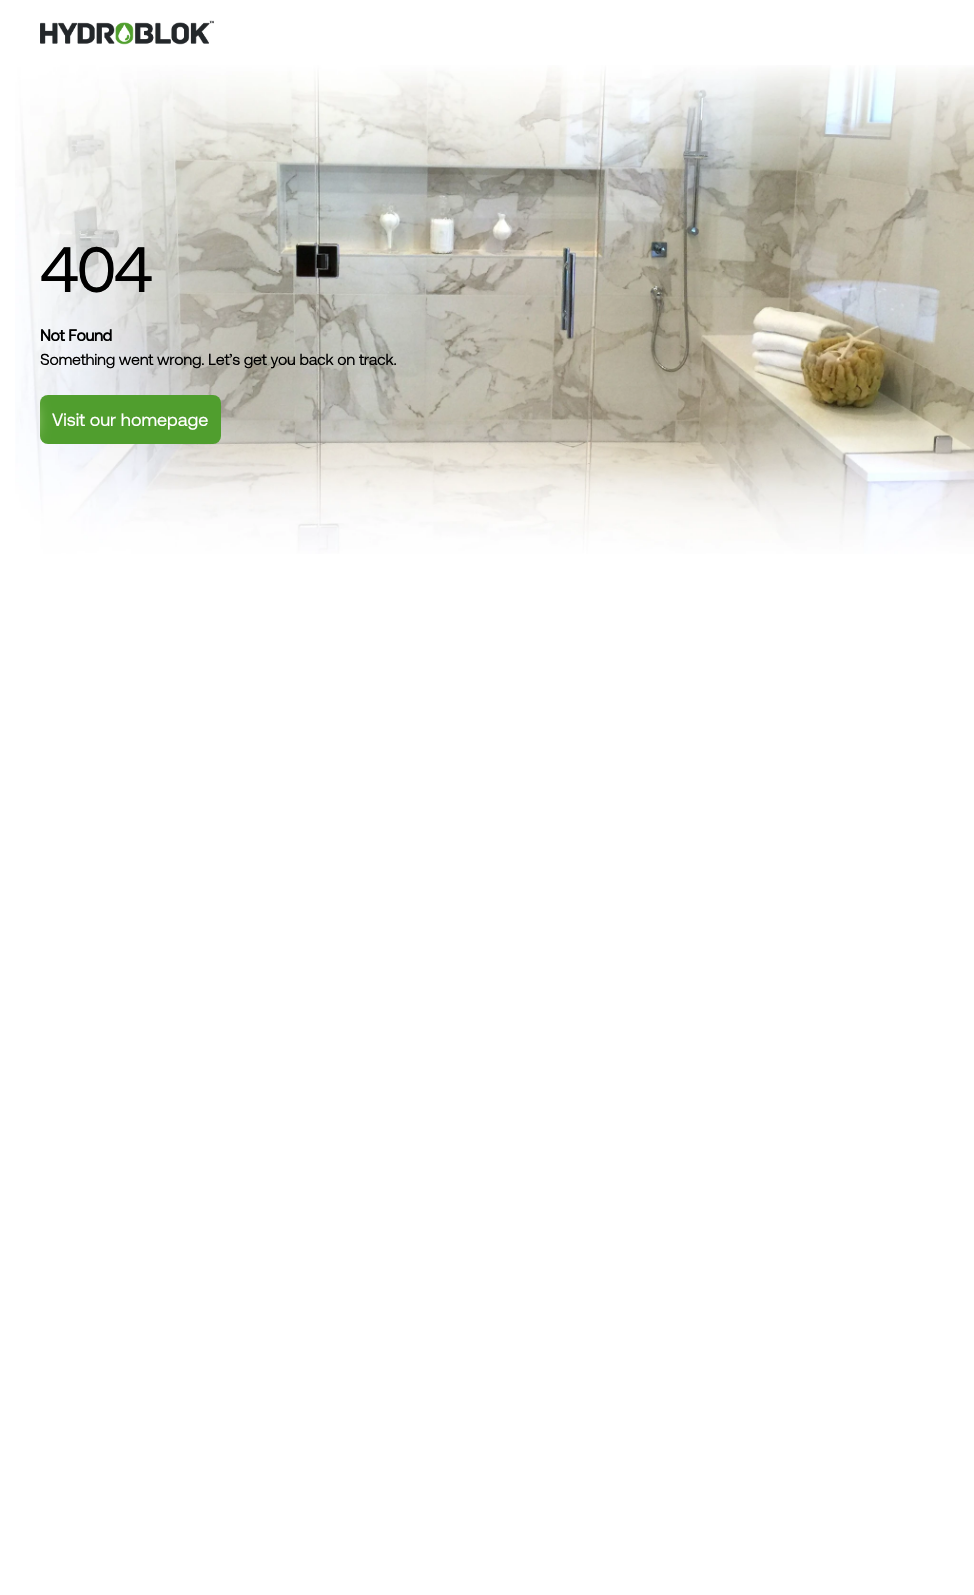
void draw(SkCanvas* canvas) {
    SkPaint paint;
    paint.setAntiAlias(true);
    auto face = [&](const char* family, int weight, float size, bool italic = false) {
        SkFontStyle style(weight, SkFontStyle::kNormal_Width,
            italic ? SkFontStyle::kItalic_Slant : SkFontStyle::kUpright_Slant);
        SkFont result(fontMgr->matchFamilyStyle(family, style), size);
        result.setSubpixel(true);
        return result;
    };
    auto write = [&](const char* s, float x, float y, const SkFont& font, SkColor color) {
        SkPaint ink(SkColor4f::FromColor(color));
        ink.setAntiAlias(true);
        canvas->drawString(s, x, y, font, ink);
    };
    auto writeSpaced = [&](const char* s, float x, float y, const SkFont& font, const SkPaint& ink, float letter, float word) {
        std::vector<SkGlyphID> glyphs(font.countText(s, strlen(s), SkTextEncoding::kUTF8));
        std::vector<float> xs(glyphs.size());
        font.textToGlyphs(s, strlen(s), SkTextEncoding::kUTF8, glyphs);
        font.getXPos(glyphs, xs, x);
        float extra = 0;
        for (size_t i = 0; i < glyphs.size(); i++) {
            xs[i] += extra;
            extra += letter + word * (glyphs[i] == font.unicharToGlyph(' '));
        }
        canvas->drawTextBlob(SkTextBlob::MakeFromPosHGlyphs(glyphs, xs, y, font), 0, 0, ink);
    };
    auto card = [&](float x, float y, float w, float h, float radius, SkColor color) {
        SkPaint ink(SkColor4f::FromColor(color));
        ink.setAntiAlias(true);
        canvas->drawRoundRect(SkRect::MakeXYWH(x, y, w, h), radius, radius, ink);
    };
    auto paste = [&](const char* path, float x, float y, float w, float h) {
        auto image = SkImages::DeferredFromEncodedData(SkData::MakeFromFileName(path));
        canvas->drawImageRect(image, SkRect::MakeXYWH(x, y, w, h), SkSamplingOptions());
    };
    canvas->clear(SK_ColorWHITE);
    paste("pic1.png", 40, 20, 174, 25);
    paste("pic2.png", 15, 65, 959, 489);
    auto kFont1 = face("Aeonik", 400, 64);
    paint.setColor(SK_ColorBLACK);
    writeSpaced("404", 40, 292, kFont1, paint, -2.5f, 0);
    auto kFont2 = face("Aeonik", 700, 16);
    writeSpaced("Not Found", 40, 341, kFont2, paint, -0.3f, 0);
    auto kFont3 = face("Aeonik", 400, 16);
    writeSpaced("Something went wrong. Let’s get you back on track.", 40, 365, kFont3, paint, -0.3f, 0);
    card(40, 395, 181, 49, 8, SkColorSetRGB(80, 158, 46));
    canvas->save();
    canvas->clipPath(SkPathBuilder().moveTo(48, 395).lineTo(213, 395).cubicTo(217.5f, 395, 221, 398.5f, 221, 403).lineTo(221, 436).cubicTo(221, 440.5f, 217.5f, 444, 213, 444).lineTo(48, 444).cubicTo(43.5f, 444, 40, 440.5f, 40, 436).lineTo(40, 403).cubicTo(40, 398.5f, 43.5f, 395, 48, 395).close().detach(), true);
    paint.setColor(SkColorSetRGB(238, 254, 201));
    paint.setMaskFilter(SkMaskFilter::MakeBlur(kNormal_SkBlurStyle, 8));
    canvas->drawRect(SkRect::MakeXYWH(12, 407, 21, 27), paint);
    paint.setMaskFilter(nullptr);
    canvas->restore();
    auto kFont4 = face("Aeonik", 400, 18);
    write("Visit our homepage", 52, 426, kFont4, SK_ColorWHITE);
}
